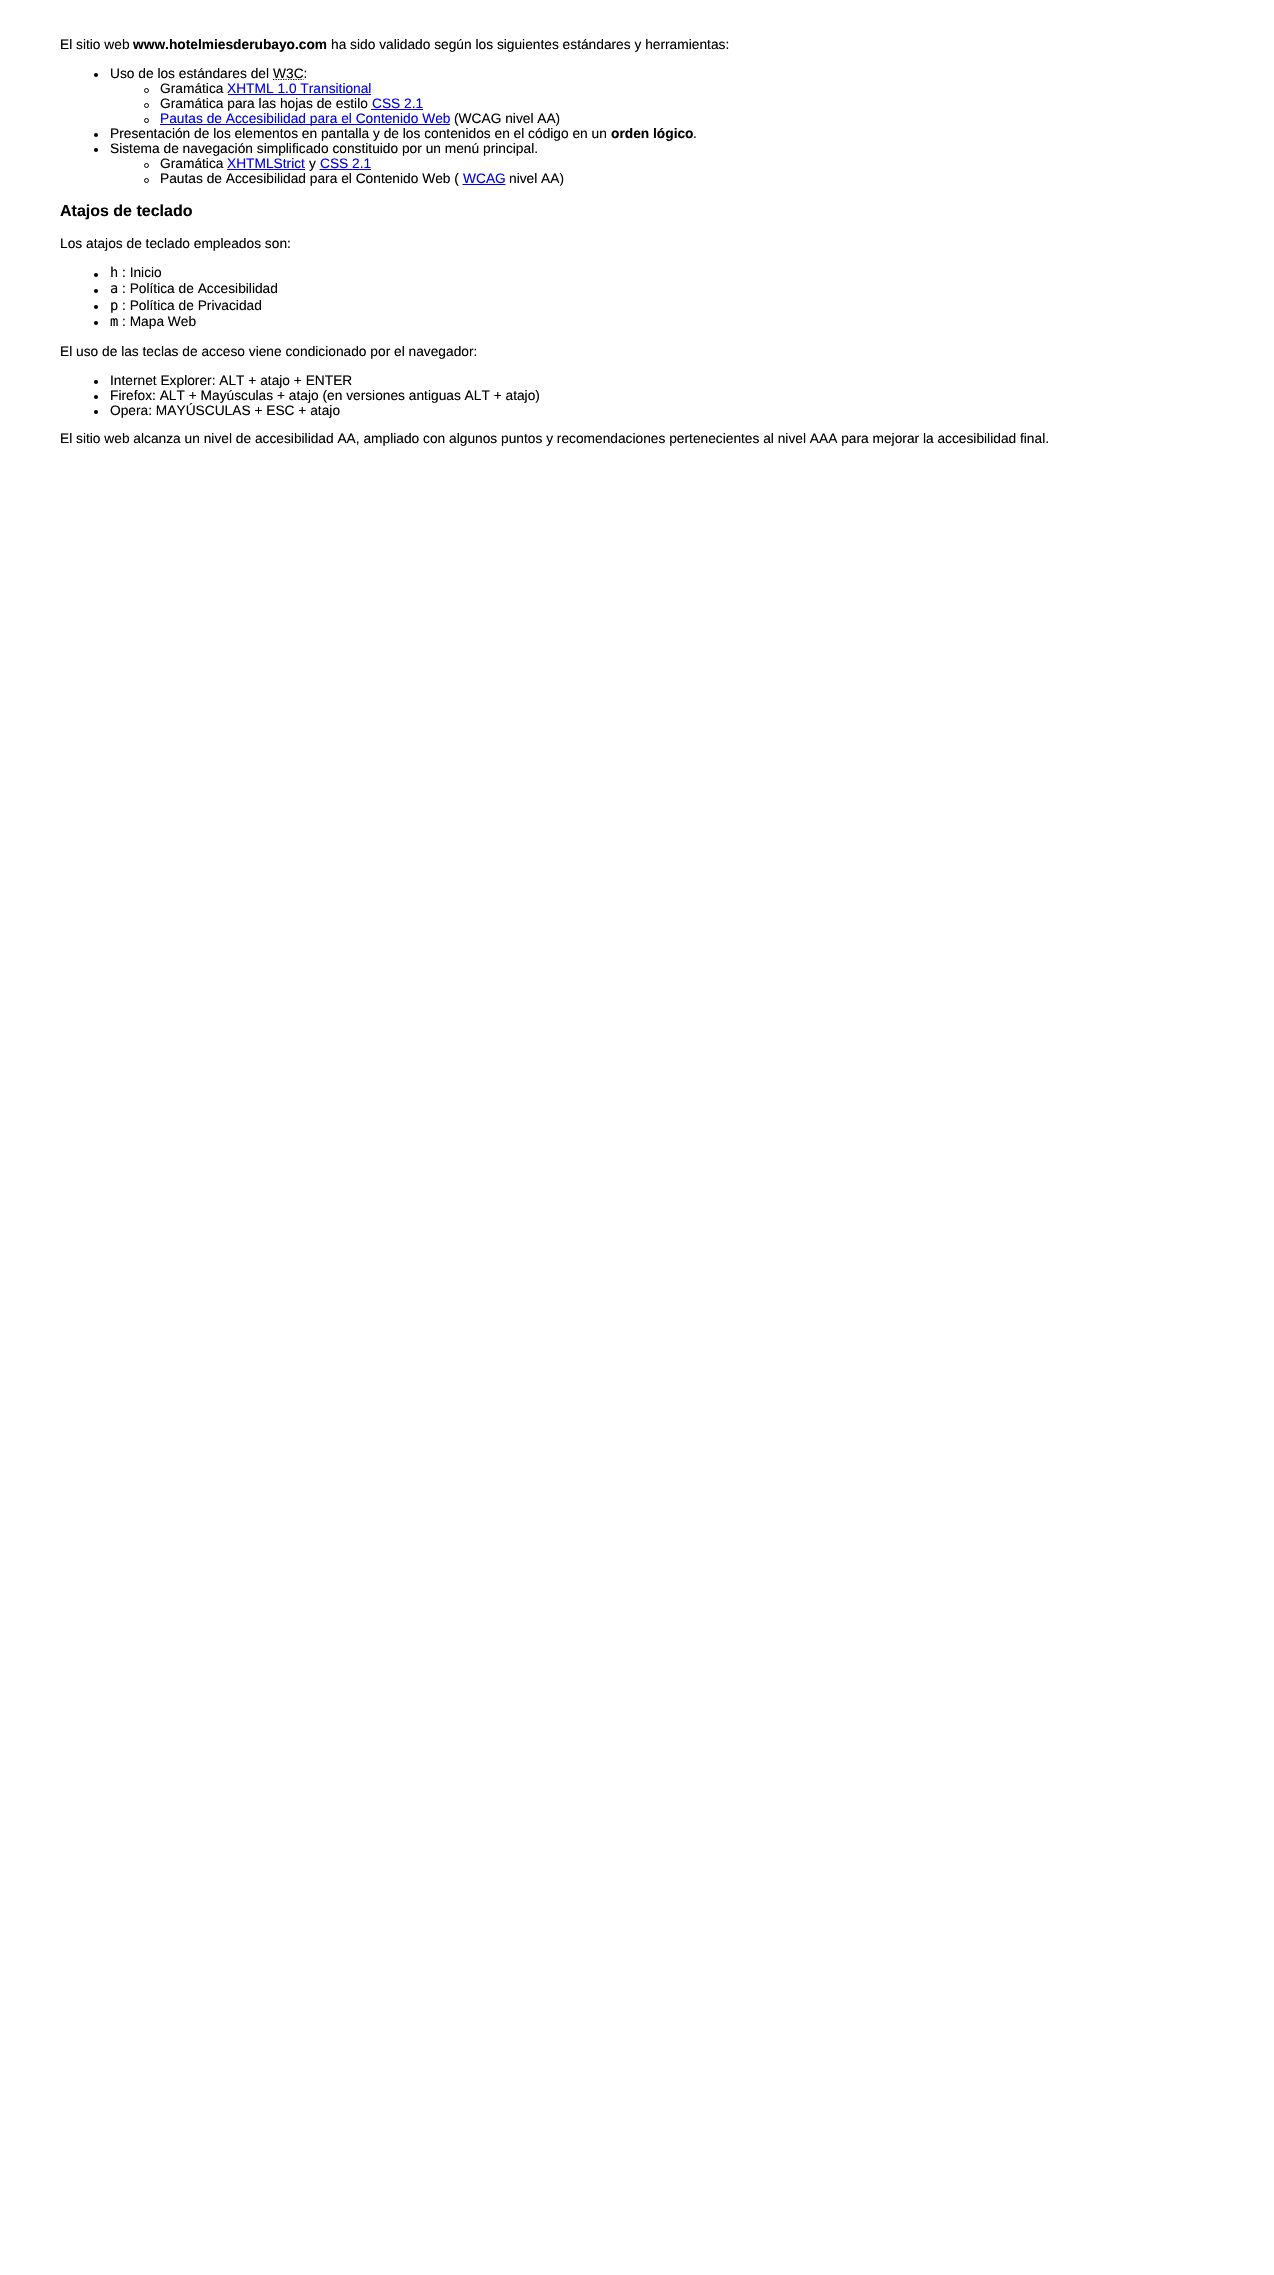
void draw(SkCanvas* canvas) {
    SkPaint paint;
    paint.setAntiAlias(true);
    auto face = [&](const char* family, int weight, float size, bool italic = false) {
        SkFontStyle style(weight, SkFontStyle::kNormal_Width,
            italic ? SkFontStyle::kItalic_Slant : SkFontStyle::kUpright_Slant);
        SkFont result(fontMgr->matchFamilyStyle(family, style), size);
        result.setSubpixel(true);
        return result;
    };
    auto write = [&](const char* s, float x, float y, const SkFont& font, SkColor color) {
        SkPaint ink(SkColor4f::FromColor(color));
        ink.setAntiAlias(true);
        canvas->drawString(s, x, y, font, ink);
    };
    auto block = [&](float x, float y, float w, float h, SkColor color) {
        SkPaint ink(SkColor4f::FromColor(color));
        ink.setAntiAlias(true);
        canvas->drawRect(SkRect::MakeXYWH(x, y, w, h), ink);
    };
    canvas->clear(SK_ColorWHITE);
    auto kFont1 = face("Liberation Sans", 400, 13.75f);
    write("El sitio web", 60, 49, kFont1, SK_ColorBLACK);
    auto kFont2 = face("Liberation Sans", 700, 13.75f);
    write("www.hotelmiesderubayo.com", 133, 49, kFont2, SK_ColorBLACK);
    write("ha sido validado según los siguientes estándares y herramientas:", 331, 49, kFont1, SK_ColorBLACK);
    paint.setColor(SK_ColorBLACK);
    canvas->drawCircle(96, 75, 2, paint);
    write("Uso de los estándares del", 110, 78, kFont1, SK_ColorBLACK);
    paint.setStyle(SkPaint::kStroke_Style);
    paint.setStrokeWidth(1.2f);
    paint.setPathEffect(SkDashPathEffect::Make({{1.25f, 1.25f}}, 0));
    canvas->drawPath(SkPathBuilder().moveTo(273, 79.5f).lineTo(303.5f, 79.5f).detach(), paint);
    paint.setPathEffect(nullptr);
    write("W3C:", 273, 78, kFont1, SK_ColorBLACK);
    paint.setStrokeWidth(1);
    canvas->drawCircle(146.5f, 90.5f, 2, paint);
    write("Gramática", 160, 93, kFont1, SK_ColorBLACK);
    write("XHTML 1.0 Transitional", 227, 93, kFont1, SkColorSetRGB(0, 0, 238));
    block(228, 94, 143, 1, SkColorSetRGB(0, 0, 238));
    canvas->drawCircle(146.5f, 105.5f, 2, paint);
    write("Gramática para las hojas de estilo", 160, 108, kFont1, SK_ColorBLACK);
    write("CSS 2.1", 372, 108, kFont1, SkColorSetRGB(0, 0, 238));
    block(371, 109, 52, 1, SkColorSetRGB(0, 0, 238));
    canvas->drawCircle(146.5f, 120.5f, 2, paint);
    block(160, 124, 290, 1, SkColorSetRGB(0, 0, 238));
    write("Pautas de Accesibilidad para el Contenido Web", 160, 123, kFont1, SkColorSetRGB(0, 0, 238));
    write("(WCAG nivel AA)", 454, 123, kFont1, SK_ColorBLACK);
    paint.setStyle(SkPaint::kFill_Style);
    canvas->drawCircle(96, 135, 2, paint);
    write("Presentación de los elementos en pantalla y de los contenidos en el código en un", 110, 138, kFont1, SK_ColorBLACK);
    write("orden lógico", 611, 138, kFont2, SK_ColorBLACK);
    write(".", 693, 138, kFont1, SK_ColorBLACK);
    canvas->drawCircle(96, 150, 2, paint);
    write("Sistema de navegación simplificado constituido por un menú principal.", 110, 153, kFont1, SK_ColorBLACK);
    paint.setStyle(SkPaint::kStroke_Style);
    canvas->drawCircle(146.5f, 165.5f, 2, paint);
    write("Gramática", 160, 168, kFont1, SK_ColorBLACK);
    paint.setStrokeWidth(1.2f);
    paint.setColor(SkColorSetRGB(0, 0, 238));
    paint.setPathEffect(SkDashPathEffect::Make({{1.25f, 1.25f}}, 0));
    canvas->drawPath(SkPathBuilder().moveTo(227, 169.5f).lineTo(274, 169.5f).detach(), paint);
    paint.setPathEffect(nullptr);
    write("XHTMLStrict", 227, 168, kFont1, SkColorSetRGB(0, 0, 238));
    block(228, 169, 77, 1, SkColorSetRGB(0, 0, 238));
    write("y", 309, 168, kFont1, SK_ColorBLACK);
    paint.setPathEffect(SkDashPathEffect::Make({{1.25f, 1.25f}}, 0));
    canvas->drawPath(SkPathBuilder().moveTo(319.5f, 169.5f).lineTo(348, 169.5f).detach(), paint);
    paint.setPathEffect(nullptr);
    write("CSS 2.1", 320, 168, kFont1, SkColorSetRGB(0, 0, 238));
    block(320, 169, 51, 1, SkColorSetRGB(0, 0, 238));
    paint.setStrokeWidth(1);
    paint.setColor(SK_ColorBLACK);
    canvas->drawCircle(146.5f, 180.5f, 2, paint);
    write("Pautas de Accesibilidad para el Contenido Web (", 160, 183, kFont1, SK_ColorBLACK);
    paint.setStrokeWidth(1.2f);
    paint.setColor(SkColorSetRGB(0, 0, 238));
    paint.setPathEffect(SkDashPathEffect::Make({{1.25f, 1.25f}}, 0));
    canvas->drawPath(SkPathBuilder().moveTo(462.5f, 184.5f).lineTo(505.5f, 184.5f).detach(), paint);
    paint.setPathEffect(nullptr);
    write("WCAG", 463, 183, kFont1, SkColorSetRGB(0, 0, 238));
    block(463, 184, 42, 1, SkColorSetRGB(0, 0, 238));
    write("nivel AA)", 509, 183, kFont1, SK_ColorBLACK);
    auto kFont3 = face("Liberation Sans", 700, 16);
    write("Atajos de teclado", 60, 216, kFont3, SK_ColorBLACK);
    write("Los atajos de teclado empleados son:", 60, 248, kFont1, SK_ColorBLACK);
    paint.setStyle(SkPaint::kFill_Style);
    paint.setColor(SK_ColorBLACK);
    canvas->drawCircle(96, 275, 2, paint);
    auto kFont4 = face("DejaVu Sans Mono", 400, 13.75f);
    write("h", 110, 277, kFont4, SK_ColorBLACK);
    write(": Inicio", 122, 277, kFont1, SK_ColorBLACK);
    canvas->drawCircle(96, 291, 2, paint);
    write("a", 110, 293, kFont4, SK_ColorBLACK);
    write(": Política de Accesibilidad", 122, 293, kFont1, SK_ColorBLACK);
    canvas->drawCircle(96, 307, 2, paint);
    write("p", 110, 310, kFont4, SK_ColorBLACK);
    write(": Política de Privacidad", 122, 310, kFont1, SK_ColorBLACK);
    canvas->drawCircle(96, 323, 2, paint);
    write("m", 110, 326, kFont4, SK_ColorBLACK);
    write(": Mapa Web", 122, 326, kFont1, SK_ColorBLACK);
    write("El uso de las teclas de acceso viene condicionado por el navegador:", 60, 356, kFont1, SK_ColorBLACK);
    canvas->drawCircle(96, 382, 2, paint);
    write("Internet Explorer: ALT + atajo + ENTER", 110, 385, kFont1, SK_ColorBLACK);
    canvas->drawCircle(96, 397, 2, paint);
    write("Firefox: ALT + Mayúsculas + atajo (en versiones antiguas ALT + atajo)", 110, 400, kFont1, SK_ColorBLACK);
    canvas->drawCircle(96, 412, 2, paint);
    write("Opera: MAYÚSCULAS + ESC + atajo", 110, 415, kFont1, SK_ColorBLACK);
    write("El sitio web alcanza un nivel de accesibilidad AA, ampliado con algunos puntos y recomendaciones pertenecientes al nivel AAA para mejorar la accesibilidad final.", 60, 443, kFont1, SK_ColorBLACK);
}
